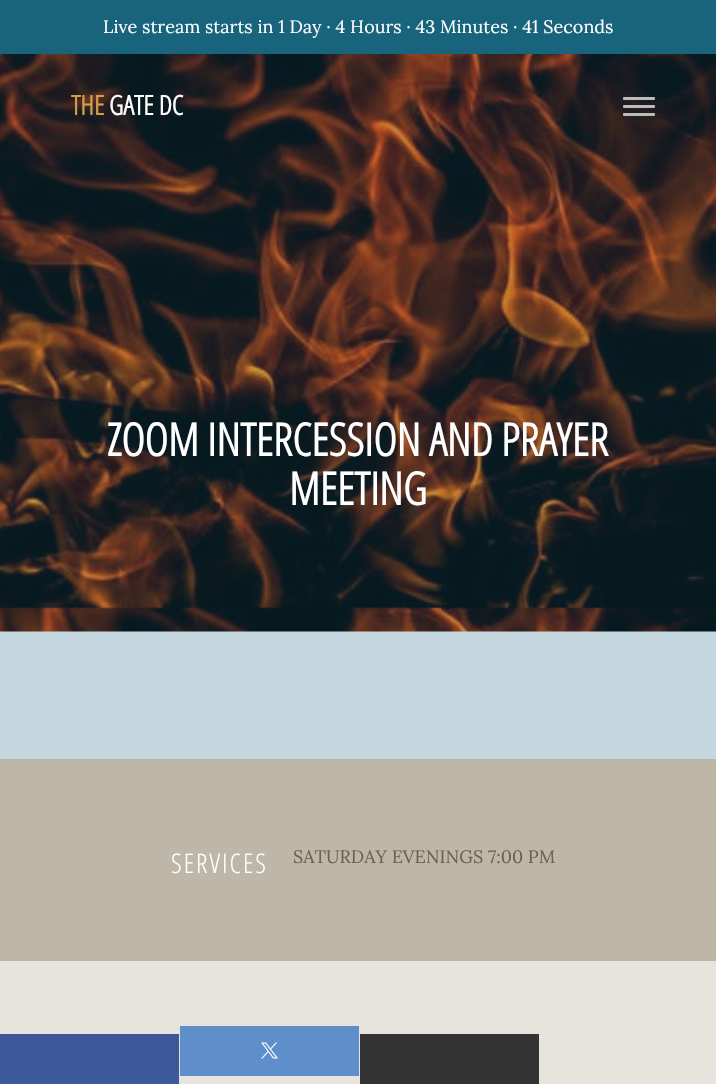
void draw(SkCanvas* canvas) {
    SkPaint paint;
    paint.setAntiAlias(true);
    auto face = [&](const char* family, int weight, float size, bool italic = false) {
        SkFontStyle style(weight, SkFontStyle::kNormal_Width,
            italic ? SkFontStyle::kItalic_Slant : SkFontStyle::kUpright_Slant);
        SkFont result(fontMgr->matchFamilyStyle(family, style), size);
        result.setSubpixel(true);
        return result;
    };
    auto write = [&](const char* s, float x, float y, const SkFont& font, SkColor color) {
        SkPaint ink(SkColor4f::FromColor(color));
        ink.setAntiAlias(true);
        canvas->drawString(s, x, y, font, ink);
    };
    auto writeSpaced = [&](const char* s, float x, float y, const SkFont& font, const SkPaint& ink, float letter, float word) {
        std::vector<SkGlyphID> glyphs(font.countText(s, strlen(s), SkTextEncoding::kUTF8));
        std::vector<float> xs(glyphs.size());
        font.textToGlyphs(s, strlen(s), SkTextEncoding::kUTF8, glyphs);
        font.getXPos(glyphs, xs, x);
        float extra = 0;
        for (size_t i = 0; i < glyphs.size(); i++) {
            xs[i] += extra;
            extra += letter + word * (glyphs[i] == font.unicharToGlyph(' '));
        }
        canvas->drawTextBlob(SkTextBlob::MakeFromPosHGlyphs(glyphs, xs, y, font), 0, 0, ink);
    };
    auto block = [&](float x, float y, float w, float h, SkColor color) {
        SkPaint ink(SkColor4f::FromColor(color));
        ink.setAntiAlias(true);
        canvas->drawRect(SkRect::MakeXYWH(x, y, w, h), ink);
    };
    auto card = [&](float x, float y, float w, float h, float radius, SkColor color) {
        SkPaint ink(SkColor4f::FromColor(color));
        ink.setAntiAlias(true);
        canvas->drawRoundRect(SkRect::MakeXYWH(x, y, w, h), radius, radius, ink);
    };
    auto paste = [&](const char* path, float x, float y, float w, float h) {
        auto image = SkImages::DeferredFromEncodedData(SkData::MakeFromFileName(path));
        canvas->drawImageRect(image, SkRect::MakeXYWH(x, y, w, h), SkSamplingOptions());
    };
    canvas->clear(SkColorSetRGB(197, 216, 223));
    block(0, 0, 716, 54, SkColorSetRGB(24, 100, 125));
    auto kFont1 = face("Lora", 400, 18);
    write("Live stream starts in 1 Day · 4 Hours · 43 Minutes · 41 Seconds", 103, 33, kFont1, SK_ColorWHITE);
    paste("pic1.png", 0, 54, 716, 578);
    auto kFont2 = face("Open Sans Condensed", 700, 27);
    write("THE", 71, 115, kFont2, SkColorSetRGB(206, 160, 74));
    write("GATE DC", 109, 115, kFont2, SK_ColorWHITE);
    card(623, 97, 32, 3, 1, SkColorSetRGB(187, 187, 187));
    card(623, 105, 32, 3, 1, SkColorSetRGB(187, 187, 187));
    card(623, 113, 32, 3, 1, SkColorSetRGB(187, 187, 187));
    auto kFont3 = face("Open Sans Condensed", 700, 45);
    write("ZOOM INTERCESSION AND PRAYER", 107, 456, kFont3, SK_ColorWHITE);
    write("MEETING", 289, 505, kFont3, SK_ColorWHITE);
    block(0, 759, 716, 202, SkColorSetRGB(190, 183, 168));
    auto kFont4 = face("Open Sans Condensed", 300, 27);
    paint.setColor(SK_ColorWHITE);
    writeSpaced("SERVICES", 171, 873, kFont4, paint, 2, 0);
    write("SATURDAY EVENINGS 7:00 PM", 293, 863, kFont1, SkColorSetRGB(108, 98, 74));
    block(0, 961, 716, 123, SkColorSetRGB(231, 228, 222));
    block(0, 1034, 179, 50, SkColorSetRGB(60, 87, 154));
    block(180, 1026, 179, 50, SkColorSetRGB(95, 143, 203));
    paste("pic2.png", 261, 1042, 17, 17);
    block(360, 1034, 179, 50, SkColorSetRGB(51, 51, 51));
}
